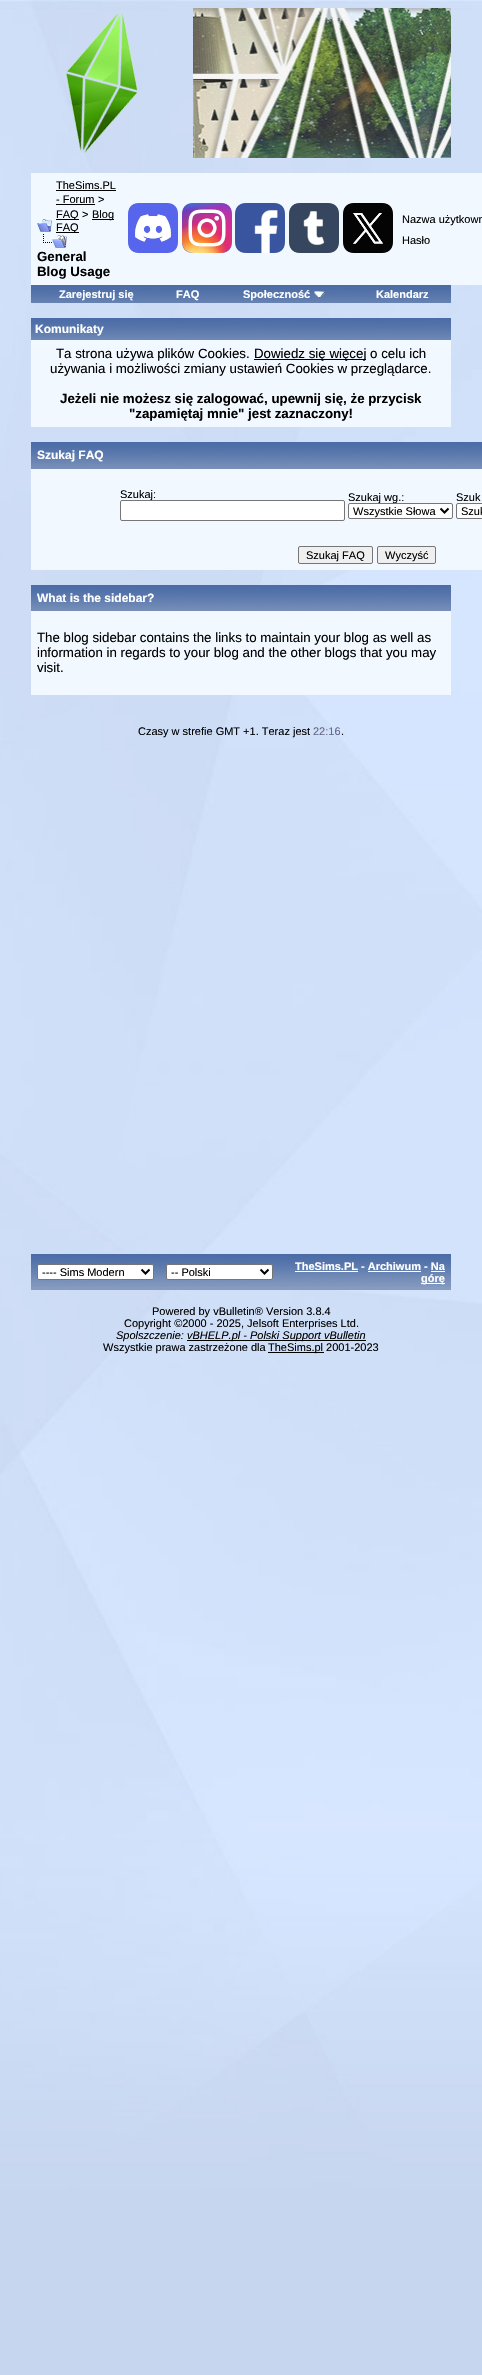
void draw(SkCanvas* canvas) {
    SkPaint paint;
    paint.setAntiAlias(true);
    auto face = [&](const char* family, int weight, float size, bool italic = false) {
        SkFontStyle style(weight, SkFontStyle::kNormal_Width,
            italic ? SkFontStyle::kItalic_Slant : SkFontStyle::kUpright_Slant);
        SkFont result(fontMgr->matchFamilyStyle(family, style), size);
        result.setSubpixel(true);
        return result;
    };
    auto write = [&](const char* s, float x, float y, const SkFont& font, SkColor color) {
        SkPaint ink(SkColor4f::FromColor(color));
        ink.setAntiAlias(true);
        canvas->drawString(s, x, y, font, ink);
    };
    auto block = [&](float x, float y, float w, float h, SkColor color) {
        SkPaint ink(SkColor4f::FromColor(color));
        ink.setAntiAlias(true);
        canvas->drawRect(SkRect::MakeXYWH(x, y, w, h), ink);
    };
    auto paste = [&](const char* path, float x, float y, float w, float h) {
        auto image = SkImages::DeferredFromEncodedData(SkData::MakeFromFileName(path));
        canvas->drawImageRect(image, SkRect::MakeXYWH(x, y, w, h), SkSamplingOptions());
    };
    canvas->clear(SK_ColorWHITE);
    paste("pic1.png", 0, 0, 482, 2375);
    paste("pic2.png", 66, 12, 72, 141);
    paste("pic3.png", 193, 8, 258, 150);
    block(31, 173, 451, 112, SkColorSetRGB(242, 248, 255));
    paste("pic4.png", 37, 219, 15, 13);
    auto kFont1 = face("Liberation Sans", 400, 11);
    write("TheSims.PL", 56, 189, kFont1, SK_ColorBLACK);
    block(56, 190, 60, 1, SK_ColorBLACK);
    write("- Forum", 56, 203, kFont1, SK_ColorBLACK);
    block(56, 204, 39, 1, SK_ColorBLACK);
    write(">", 98, 203, kFont1, SK_ColorBLACK);
    block(56, 219, 23, 1, SK_ColorBLACK);
    write("FAQ", 56, 218, kFont1, SK_ColorBLACK);
    write(">", 82, 218, kFont1, SK_ColorBLACK);
    block(92, 219, 22, 1, SK_ColorBLACK);
    write("Blog", 92, 218, kFont1, SK_ColorBLACK);
    block(56, 232, 23, 1, SK_ColorBLACK);
    write("FAQ", 56, 231, kFont1, SK_ColorBLACK);
    paste("pic5.png", 43, 234, 24, 14);
    auto kFont2 = face("Liberation Sans", 700, 13.3f);
    write("General", 37, 261, kFont2, SK_ColorBLACK);
    write("Blog Usage", 37, 276, kFont2, SK_ColorBLACK);
    paste("pic6.png", 128, 203, 50, 50);
    paste("pic7.png", 182, 203, 50, 50);
    paste("pic8.png", 235, 203, 50, 50);
    paste("pic9.png", 289, 203, 50, 50);
    paste("pic10.png", 343, 203, 50, 50);
    write("Nazwa użytkown", 402, 223, kFont1, SK_ColorBLACK);
    write("Hasło", 402, 244, kFont1, SK_ColorBLACK);
    paste("pic11.png", 31, 285, 130, 18);
    auto kFont3 = face("Liberation Sans", 700, 11);
    write("Zarejestruj się", 59, 298, kFont3, SK_ColorWHITE);
    paste("pic12.png", 161, 285, 53, 18);
    write("FAQ", 176, 298, kFont3, SK_ColorWHITE);
    paste("pic13.png", 214, 285, 140, 18);
    write("Społeczność", 243, 298, kFont3, SK_ColorWHITE);
    paste("pic14.png", 314, 291, 11, 7);
    paste("pic15.png", 354, 285, 97, 18);
    write("Kalendarz", 376, 298, kFont3, SK_ColorWHITE);
    paste("pic16.png", 31, 318, 420, 22);
    auto kFont4 = face("Liberation Sans", 700, 12);
    write("Komunikaty", 35, 333, kFont4, SK_ColorWHITE);
    block(31, 340, 420, 87, SkColorSetRGB(242, 248, 255));
    auto kFont5 = face("Liberation Sans", 400, 13.3f);
    write("Ta strona używa plików Cookies.", 56, 358, kFont5, SK_ColorBLACK);
    block(254, 359, 112, 1, SK_ColorBLACK);
    write("Dowiedz się więcej o celu ich", 254, 358, kFont5, SK_ColorBLACK);
    write("używania i możliwości zmiany ustawień Cookies w przeglądarce.", 50, 373, kFont5, SK_ColorBLACK);
    write("Jeżeli nie możesz się zalogować, upewnij się, że przycisk", 60, 403, kFont2, SK_ColorBLACK);
    write("\"zapamiętaj mnie\" jest zaznaczony!", 129, 418, kFont2, SK_ColorBLACK);
    paste("pic17.png", 31, 442, 451, 27);
    write("Szukaj FAQ", 37, 459, kFont4, SK_ColorWHITE);
    block(31, 469, 451, 101, SkColorSetRGB(242, 248, 255));
    write("Szukaj:", 120, 498, kFont1, SK_ColorBLACK);
    paint.setColor(SK_ColorWHITE);
    canvas->drawRoundRect(SkRect::MakeXYWH(120.5f, 500.5f, 224, 20), 1.5f, 1.5f, paint);
    paint.setStyle(SkPaint::kStroke_Style);
    paint.setStrokeWidth(1);
    paint.setColor(SkColorSetRGB(118, 118, 118));
    canvas->drawRoundRect(SkRect::MakeXYWH(120.5f, 500.5f, 224, 20), 1.5f, 1.5f, paint);
    write("Szukaj wg.:", 348, 501, kFont1, SK_ColorBLACK);
    paint.setStyle(SkPaint::kFill_Style);
    paint.setColor(SK_ColorWHITE);
    canvas->drawRoundRect(SkRect::MakeXYWH(348.5f, 503.5f, 104, 15), 1.5f, 1.5f, paint);
    paint.setStyle(SkPaint::kStroke_Style);
    paint.setColor(SkColorSetRGB(118, 118, 118));
    canvas->drawRoundRect(SkRect::MakeXYWH(348.5f, 503.5f, 104, 15), 1.5f, 1.5f, paint);
    paint.setStrokeWidth(2);
    paint.setColor(SK_ColorBLACK);
    canvas->drawPath(SkPathBuilder().moveTo(440.5f, 508.5f).lineTo(444.5f, 512.5f).lineTo(448.5f, 508.5f).detach(), paint);
    write("Wszystkie Słowa", 353, 515, kFont1, SK_ColorBLACK);
    write("Szuk", 456, 501, kFont1, SK_ColorBLACK);
    paint.setStyle(SkPaint::kFill_Style);
    paint.setColor(SK_ColorWHITE);
    canvas->drawRoundRect(SkRect::MakeXYWH(456.5f, 503.5f, 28, 15), 1.5f, 1.5f, paint);
    paint.setStyle(SkPaint::kStroke_Style);
    paint.setStrokeWidth(1);
    paint.setColor(SkColorSetRGB(118, 118, 118));
    canvas->drawRoundRect(SkRect::MakeXYWH(456.5f, 503.5f, 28, 15), 1.5f, 1.5f, paint);
    write("Szuk", 461, 515, kFont1, SK_ColorBLACK);
    paint.setStyle(SkPaint::kFill_Style);
    paint.setColor(SkColorSetRGB(239, 239, 239));
    canvas->drawRoundRect(SkRect::MakeXYWH(298.5f, 546.5f, 74, 17), 1.5f, 1.5f, paint);
    paint.setStyle(SkPaint::kStroke_Style);
    paint.setColor(SkColorSetRGB(118, 118, 118));
    canvas->drawRoundRect(SkRect::MakeXYWH(298.5f, 546.5f, 74, 17), 1.5f, 1.5f, paint);
    write("Szukaj FAQ", 306, 559, kFont1, SK_ColorBLACK);
    paint.setStyle(SkPaint::kFill_Style);
    paint.setColor(SkColorSetRGB(239, 239, 239));
    canvas->drawRoundRect(SkRect::MakeXYWH(377.5f, 546.5f, 58, 17), 1.5f, 1.5f, paint);
    paint.setStyle(SkPaint::kStroke_Style);
    paint.setColor(SkColorSetRGB(118, 118, 118));
    canvas->drawRoundRect(SkRect::MakeXYWH(377.5f, 546.5f, 58, 17), 1.5f, 1.5f, paint);
    write("Wyczyść", 385, 559, kFont1, SK_ColorBLACK);
    paste("pic18.png", 31, 585, 420, 26);
    write("What is the sidebar?", 37, 602, kFont4, SK_ColorWHITE);
    block(31, 611, 420, 84, SkColorSetRGB(242, 248, 255));
    write("The blog sidebar contains the links to maintain your blog as well as", 37, 642, kFont5, SK_ColorBLACK);
    write("information in regards to your blog and the other blogs that you may", 37, 657, kFont5, SK_ColorBLACK);
    write("visit.", 37, 672, kFont5, SK_ColorBLACK);
    write("Czasy w strefie GMT +1. Teraz jest", 138, 735, kFont1, SK_ColorBLACK);
    write("22:16", 313, 735, kFont1, SkColorSetRGB(102, 102, 134));
    write(".", 341, 735, kFont1, SK_ColorBLACK);
    block(31, 1287, 420, 3, SkColorSetRGB(134, 155, 191));
    paste("pic19.png", 31, 1254, 129, 33);
    paint.setStyle(SkPaint::kFill_Style);
    paint.setColor(SK_ColorWHITE);
    canvas->drawRoundRect(SkRect::MakeXYWH(37.5f, 1264.5f, 116, 15), 1.5f, 1.5f, paint);
    paint.setStyle(SkPaint::kStroke_Style);
    paint.setColor(SkColorSetRGB(118, 118, 118));
    canvas->drawRoundRect(SkRect::MakeXYWH(37.5f, 1264.5f, 116, 15), 1.5f, 1.5f, paint);
    paint.setStrokeWidth(2);
    paint.setColor(SK_ColorBLACK);
    canvas->drawPath(SkPathBuilder().moveTo(141.5f, 1269.5f).lineTo(145.5f, 1273.5f).lineTo(149.5f, 1269.5f).detach(), paint);
    write("---- Sims Modern", 42, 1276, kFont1, SK_ColorBLACK);
    paste("pic20.png", 160, 1254, 119, 33);
    paint.setStyle(SkPaint::kFill_Style);
    paint.setColor(SK_ColorWHITE);
    canvas->drawRoundRect(SkRect::MakeXYWH(166.5f, 1264.5f, 106, 15), 1.5f, 1.5f, paint);
    paint.setStyle(SkPaint::kStroke_Style);
    paint.setStrokeWidth(1);
    paint.setColor(SkColorSetRGB(118, 118, 118));
    canvas->drawRoundRect(SkRect::MakeXYWH(166.5f, 1264.5f, 106, 15), 1.5f, 1.5f, paint);
    paint.setStrokeWidth(2);
    paint.setColor(SK_ColorBLACK);
    canvas->drawPath(SkPathBuilder().moveTo(260.5f, 1269.5f).lineTo(264.5f, 1273.5f).lineTo(268.5f, 1269.5f).detach(), paint);
    write("-- Polski", 171, 1276, kFont1, SK_ColorBLACK);
    paste("pic21.png", 279, 1254, 172, 33);
    write("TheSims.PL - Archiwum - Na", 295, 1270, kFont3, SK_ColorWHITE);
    block(295, 1271, 63, 1, SK_ColorWHITE);
    block(368, 1271, 53, 1, SK_ColorWHITE);
    block(431, 1271, 14, 1, SK_ColorWHITE);
    block(421, 1283, 24, 1, SK_ColorWHITE);
    write("górę", 421, 1282, kFont3, SK_ColorWHITE);
    write("Powered by vBulletin® Version 3.8.4", 152, 1315, kFont1, SK_ColorBLACK);
    write("Copyright ©2000 - 2025, Jelsoft Enterprises Ltd.", 124, 1327, kFont1, SK_ColorBLACK);
    auto kFont6 = face("Liberation Sans", 400, 11, true);
    write("Spolszczenie:", 116, 1339, kFont6, SK_ColorBLACK);
    block(187, 1340, 179, 1, SK_ColorBLACK);
    write("vBHELP.pl - Polski Support vBulletin", 187, 1339, kFont6, SK_ColorBLACK);
    write("Wszystkie prawa zastrzeżone dla", 103, 1351, kFont1, SK_ColorBLACK);
    block(268, 1352, 56, 1, SK_ColorBLACK);
    write("TheSims.pl 2001-2023", 268, 1351, kFont1, SK_ColorBLACK);
}
